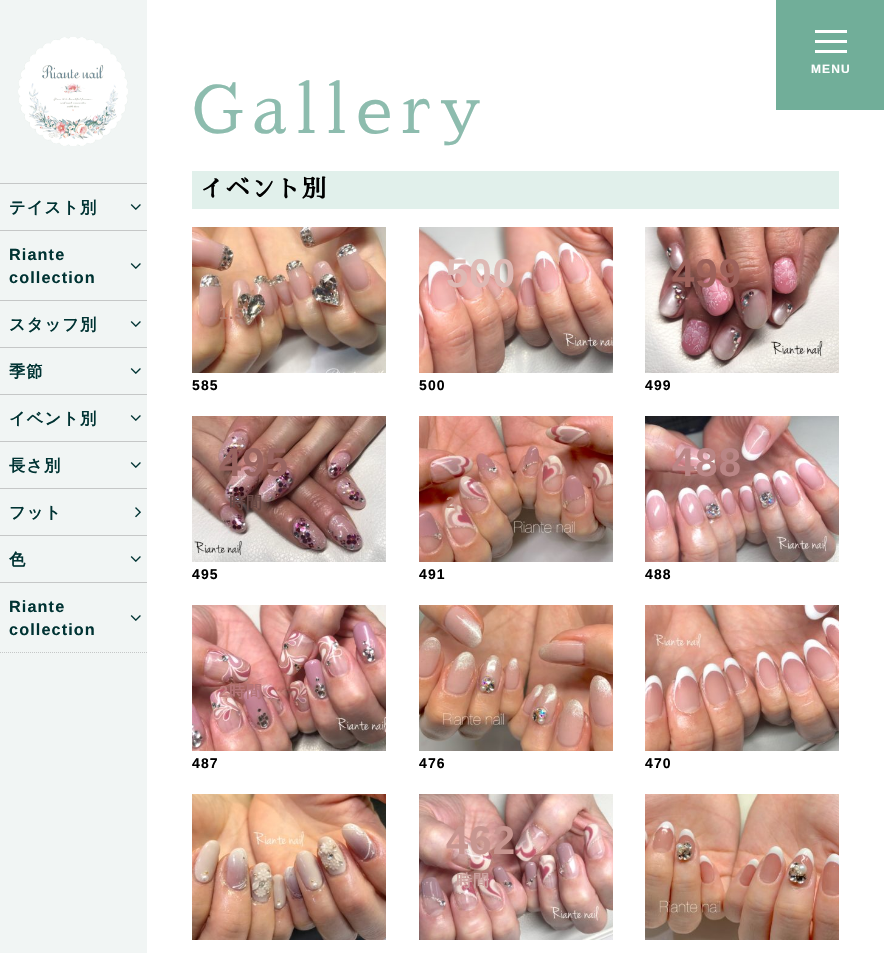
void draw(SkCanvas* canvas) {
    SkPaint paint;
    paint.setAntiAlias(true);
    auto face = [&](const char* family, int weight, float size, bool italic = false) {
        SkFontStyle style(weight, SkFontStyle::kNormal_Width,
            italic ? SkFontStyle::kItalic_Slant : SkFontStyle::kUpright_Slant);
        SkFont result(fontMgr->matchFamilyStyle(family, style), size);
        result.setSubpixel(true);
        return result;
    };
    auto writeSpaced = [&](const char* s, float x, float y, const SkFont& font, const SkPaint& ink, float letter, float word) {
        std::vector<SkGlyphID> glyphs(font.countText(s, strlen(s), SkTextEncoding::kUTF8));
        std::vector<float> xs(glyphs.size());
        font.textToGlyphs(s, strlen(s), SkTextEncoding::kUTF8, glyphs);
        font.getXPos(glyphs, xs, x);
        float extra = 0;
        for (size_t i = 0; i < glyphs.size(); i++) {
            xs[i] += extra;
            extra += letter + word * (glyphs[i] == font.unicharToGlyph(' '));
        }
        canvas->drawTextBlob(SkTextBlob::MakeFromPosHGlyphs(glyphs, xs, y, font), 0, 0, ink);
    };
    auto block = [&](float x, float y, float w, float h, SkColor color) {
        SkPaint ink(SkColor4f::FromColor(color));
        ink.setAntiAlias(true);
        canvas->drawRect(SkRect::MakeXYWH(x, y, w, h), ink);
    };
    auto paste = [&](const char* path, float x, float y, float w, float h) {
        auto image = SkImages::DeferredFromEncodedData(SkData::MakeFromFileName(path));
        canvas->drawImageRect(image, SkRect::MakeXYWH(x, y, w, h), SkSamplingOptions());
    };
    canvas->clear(SK_ColorWHITE);
    block(776, 0, 108, 110, SkColorSetRGB(113, 174, 153));
    block(815, 30, 32, 3, SK_ColorWHITE);
    block(815, 40, 32, 3, SK_ColorWHITE);
    block(815, 50, 32, 3, SK_ColorWHITE);
    auto kFont1 = face("Liberation Sans", 700, 12);
    paint.setColor(SK_ColorWHITE);
    writeSpaced("MENU", 811, 73, kFont1, paint, 1.1f, 0);
    block(0, 0, 147, 953, SkColorSetRGB(241, 245, 244));
    paste("pic1.png", 18, 37, 110, 109);
    block(0, 183, 147, 1, SkColorSetRGB(197, 199, 199));
    auto kFont2 = face("WenQuanYi Zen Hei", 700, 16.25f);
    paint.setColor(SkColorSetRGB(0, 51, 51));
    writeSpaced("テイスト別", 9, 213, kFont2, paint, 1.1f, 0);
    paste("pic2.png", 130, 204, 11, 6);
    block(0, 230, 147, 1, SkColorSetRGB(197, 199, 199));
    auto kFont3 = face("Liberation Sans", 700, 16.25f);
    writeSpaced("Riante", 9, 260, kFont3, paint, 1.1f, 0);
    paste("pic2.png", 130, 263, 11, 6);
    writeSpaced("collection", 9, 283, kFont3, paint, 1.1f, 0);
    block(0, 300, 147, 1, SkColorSetRGB(197, 199, 199));
    writeSpaced("スタッフ別", 9, 330, kFont2, paint, 1.1f, 0);
    paste("pic2.png", 130, 321, 11, 6);
    block(0, 347, 147, 1, SkColorSetRGB(197, 199, 199));
    writeSpaced("季節", 9, 377, kFont2, paint, 1.1f, 0);
    paste("pic2.png", 130, 368, 11, 6);
    block(0, 394, 147, 1, SkColorSetRGB(197, 199, 199));
    writeSpaced("イベント別", 9, 424, kFont2, paint, 1.1f, 0);
    paste("pic2.png", 130, 415, 11, 6);
    block(0, 441, 147, 1, SkColorSetRGB(197, 199, 199));
    writeSpaced("長さ別", 9, 471, kFont2, paint, 1.1f, 0);
    paste("pic2.png", 130, 462, 11, 6);
    block(0, 488, 147, 1, SkColorSetRGB(197, 199, 199));
    writeSpaced("フット", 9, 518, kFont2, paint, 1.1f, 0);
    paste("pic3.png", 135, 507, 6, 11);
    block(0, 535, 147, 1, SkColorSetRGB(197, 199, 199));
    writeSpaced("色", 9, 565, kFont2, paint, 1.1f, 0);
    paste("pic2.png", 130, 556, 11, 6);
    block(0, 582, 147, 1, SkColorSetRGB(197, 199, 199));
    paint.setStyle(SkPaint::kStroke_Style);
    paint.setStrokeWidth(1);
    paint.setColor(SkColorSetRGB(197, 199, 199));
    paint.setPathEffect(SkDashPathEffect::Make({{1, 1}}, 0));
    canvas->drawPath(SkPathBuilder().moveTo(0, 652.5f).lineTo(147, 652.5f).detach(), paint);
    paint.setPathEffect(nullptr);
    paint.setStyle(SkPaint::kFill_Style);
    paint.setColor(SkColorSetRGB(0, 51, 51));
    writeSpaced("Riante", 9, 612, kFont3, paint, 1.1f, 0);
    paste("pic2.png", 130, 615, 11, 6);
    writeSpaced("collection", 9, 635, kFont3, paint, 1.1f, 0);
    auto kFont4 = face("Sawarabi Mincho", 400, 65);
    paint.setColor(SkColorSetRGB(141, 188, 174));
    writeSpaced("Gallery", 192, 133, kFont4, paint, 9.75f, 0);
    block(192, 171, 647, 38, SkColorSetRGB(225, 240, 235));
    auto kFont5 = face("Sawarabi Mincho", 700, 24.25f);
    paint.setColor(SK_ColorBLACK);
    writeSpaced("イベント別", 200, 197, kFont5, paint, 1.1f, 0);
    paste("pic4.png", 192, 227, 194, 146);
    auto kFont6 = face("Liberation Sans", 700, 16);
    paint.setColor(SkColorSetRGB(178, 123, 104));
    writeSpaced("1.5", 219, 319, kFont6, paint, 1.1f, 0);
    auto kFont7 = face("Liberation Sans", 700, 14);
    paint.setColor(SK_ColorBLACK);
    writeSpaced("585", 192, 390, kFont7, paint, 1.1f, 0);
    paste("pic5.png", 419, 227, 194, 146);
    auto kFont8 = face("Liberation Sans", 700, 40);
    paint.setColor(SkColorSetRGB(222, 185, 180));
    writeSpaced("500", 446, 287, kFont8, paint, 1.1f, 0);
    paint.setColor(SK_ColorBLACK);
    writeSpaced("500", 419, 390, kFont7, paint, 1.1f, 0);
    paste("pic6.png", 645, 227, 194, 146);
    paint.setColor(SkColorSetRGB(157, 98, 91));
    writeSpaced("499", 672, 287, kFont8, paint, 1.1f, 0);
    paint.setColor(SK_ColorBLACK);
    writeSpaced("499", 645, 390, kFont7, paint, 1.1f, 0);
    paste("pic7.png", 192, 416, 194, 146);
    paint.setColor(SkColorSetRGB(153, 101, 97));
    writeSpaced("495", 219, 476, kFont8, paint, 1.1f, 0);
    auto kFont9 = face("WenQuanYi Zen Hei", 700, 16);
    paint.setColor(SkColorSetRGB(104, 72, 69));
    writeSpaced("時間", 229, 508, kFont9, paint, 1.1f, 0);
    paint.setColor(SK_ColorBLACK);
    writeSpaced("495", 192, 579, kFont7, paint, 1.1f, 0);
    paste("pic8.png", 419, 416, 194, 146);
    paint.setColor(SkColorSetRGB(182, 127, 112));
    writeSpaced("2", 446, 508, kFont6, paint, 1.1f, 0);
    paint.setColor(SK_ColorBLACK);
    writeSpaced("491", 419, 579, kFont7, paint, 1.1f, 0);
    paste("pic9.png", 645, 416, 194, 146);
    paint.setColor(SkColorSetRGB(186, 134, 134));
    writeSpaced("488", 672, 476, kFont8, paint, 1.1f, 0);
    paint.setColor(SK_ColorBLACK);
    writeSpaced("488", 645, 579, kFont7, paint, 1.1f, 0);
    paste("pic10.png", 192, 605, 194, 146);
    paint.setColor(SkColorSetRGB(190, 127, 126));
    writeSpaced("2", 219, 697, kFont6, paint, 1.1f, 0);
    paint.setColor(SkColorSetRGB(181, 117, 120));
    writeSpaced("時間", 229, 697, kFont9, paint, 1.1f, 0);
    paint.setColor(SK_ColorBLACK);
    writeSpaced("487", 192, 768, kFont7, paint, 1.1f, 0);
    paste("pic11.png", 419, 605, 194, 146);
    writeSpaced("476", 419, 768, kFont7, paint, 1.1f, 0);
    paste("pic12.png", 645, 605, 194, 146);
    writeSpaced("470", 645, 768, kFont7, paint, 1.1f, 0);
    paste("pic13.png", 192, 794, 194, 146);
    paste("pic14.png", 419, 794, 194, 146);
    paint.setColor(SkColorSetRGB(199, 150, 144));
    writeSpaced("462", 446, 854, kFont8, paint, 1.1f, 0);
    paint.setColor(SkColorSetRGB(203, 160, 157));
    writeSpaced("時間", 456, 886, kFont9, paint, 1.1f, 0);
    paste("pic15.png", 645, 794, 194, 146);
}
